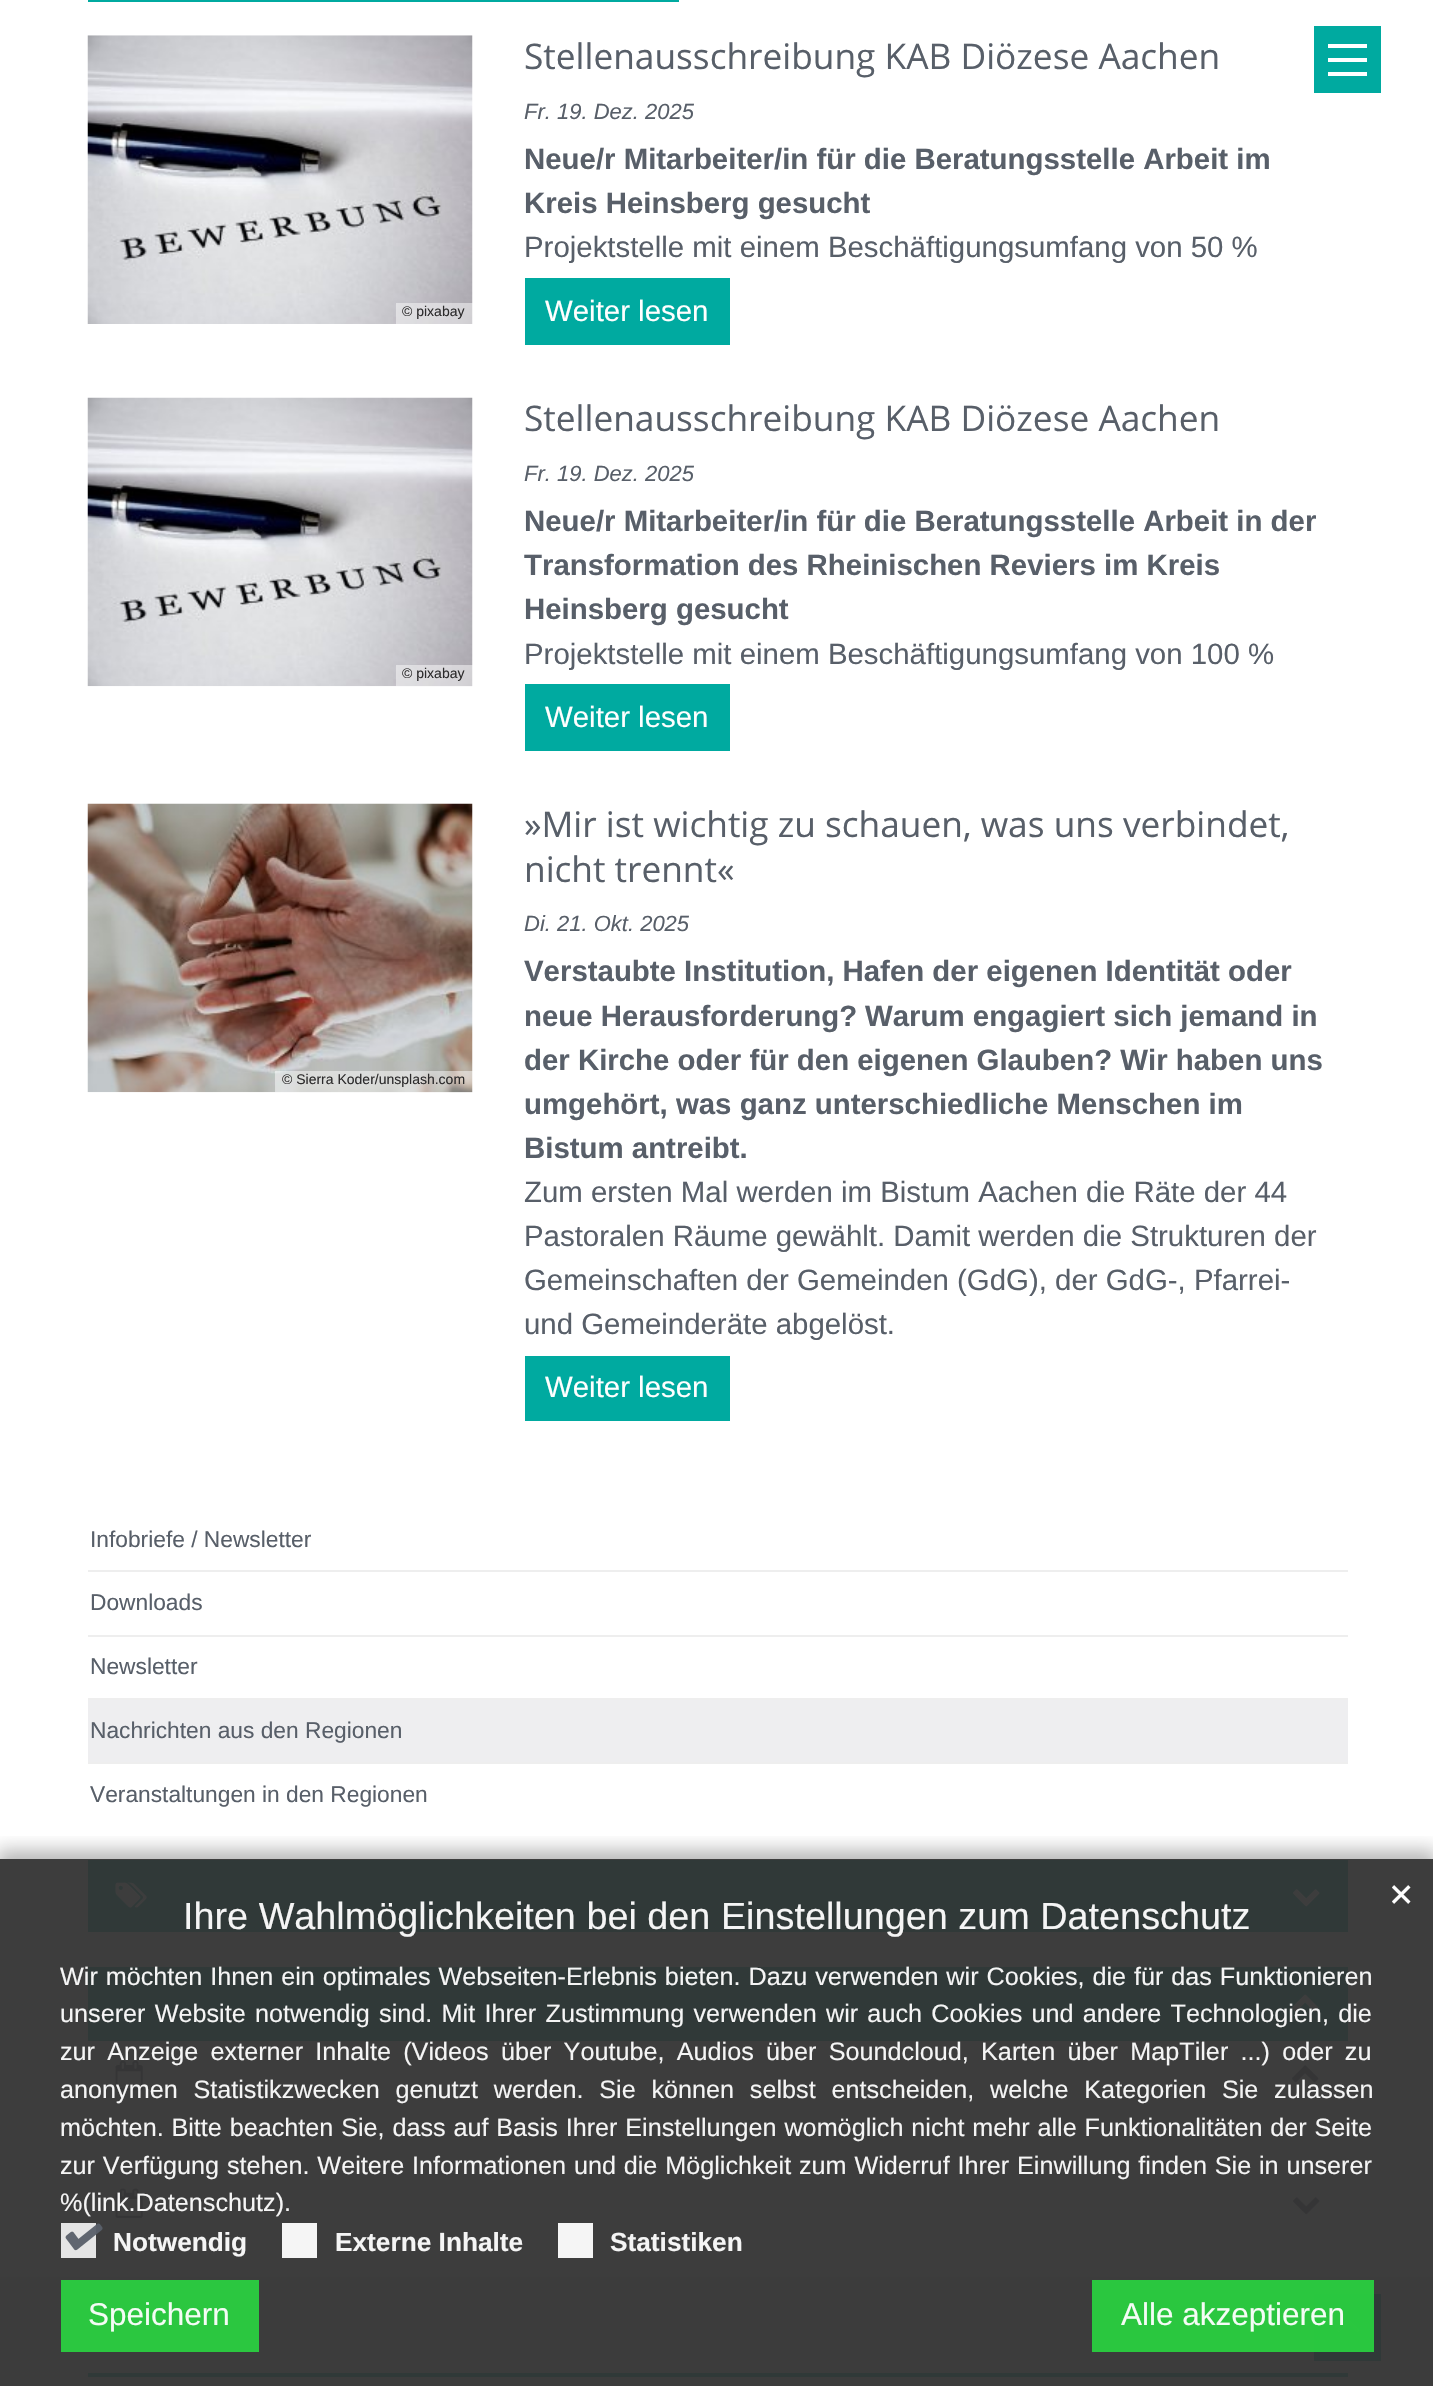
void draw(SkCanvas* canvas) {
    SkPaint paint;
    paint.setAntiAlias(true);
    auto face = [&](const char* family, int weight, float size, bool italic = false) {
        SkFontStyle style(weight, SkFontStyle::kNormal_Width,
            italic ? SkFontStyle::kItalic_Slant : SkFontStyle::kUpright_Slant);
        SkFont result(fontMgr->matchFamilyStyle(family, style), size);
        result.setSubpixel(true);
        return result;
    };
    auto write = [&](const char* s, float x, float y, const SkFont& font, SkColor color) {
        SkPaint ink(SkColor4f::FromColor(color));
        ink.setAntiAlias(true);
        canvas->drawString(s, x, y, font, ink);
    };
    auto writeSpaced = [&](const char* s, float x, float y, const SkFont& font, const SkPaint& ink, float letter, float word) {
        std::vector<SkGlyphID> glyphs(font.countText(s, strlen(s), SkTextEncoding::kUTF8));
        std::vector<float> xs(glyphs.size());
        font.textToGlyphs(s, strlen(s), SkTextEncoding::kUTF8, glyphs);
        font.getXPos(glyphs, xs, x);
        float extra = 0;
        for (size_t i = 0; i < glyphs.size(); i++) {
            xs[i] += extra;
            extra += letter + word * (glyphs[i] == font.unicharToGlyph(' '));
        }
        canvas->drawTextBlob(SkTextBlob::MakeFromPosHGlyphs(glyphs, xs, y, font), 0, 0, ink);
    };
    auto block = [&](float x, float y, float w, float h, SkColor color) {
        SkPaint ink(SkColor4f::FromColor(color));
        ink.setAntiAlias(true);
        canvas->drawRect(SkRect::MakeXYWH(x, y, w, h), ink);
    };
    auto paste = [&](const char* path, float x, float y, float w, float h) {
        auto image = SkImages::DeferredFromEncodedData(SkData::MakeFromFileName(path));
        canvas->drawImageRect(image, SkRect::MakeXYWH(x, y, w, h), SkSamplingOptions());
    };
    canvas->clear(SK_ColorWHITE);
    block(0, 1859, 1433, 418, SkColorSetRGB(61, 61, 61));
    block(88, 0, 591, 2, SkColorSetRGB(0, 170, 160));
    paste("pic1.png", 87, 35, 386, 289);
    block(396, 303, 77, 21, SkColorSetARGB(122, 255, 255, 255));
    auto kFont1 = face("Liberation Sans", 400, 14);
    write("© pixabay", 402, 316, kFont1, SkColorSetRGB(44, 43, 44));
    auto kFont2 = face("Open Sans", 400, 35.25f);
    write("Stellenausschreibung KAB Diözese Aachen", 524, 69, kFont2, SkColorSetRGB(88, 95, 105));
    auto kFont3 = face("Liberation Sans", 400, 22, true);
    write("Fr. 19. Dez. 2025", 524, 119, kFont3, SkColorSetRGB(88, 95, 105));
    auto kFont4 = face("Liberation Sans", 700, 29.4f);
    write("Neue/r Mitarbeiter/in für die Beratungsstelle Arbeit im", 524, 169, kFont4, SkColorSetRGB(88, 95, 105));
    write("Kreis Heinsberg gesucht", 524, 213, kFont4, SkColorSetRGB(88, 95, 105));
    auto kFont5 = face("Liberation Sans", 400, 29.4f);
    write("Projektstelle mit einem Beschäftigungsumfang von 50 %", 524, 257, kFont5, SkColorSetRGB(88, 95, 105));
    block(525, 278, 205, 67, SkColorSetRGB(0, 170, 160));
    write("Weiter lesen", 545, 321, kFont5, SK_ColorWHITE);
    paste("pic2.png", 87, 397, 386, 290);
    block(396, 665, 77, 21, SkColorSetARGB(122, 255, 255, 255));
    write("© pixabay", 402, 678, kFont1, SkColorSetRGB(44, 43, 44));
    write("Stellenausschreibung KAB Diözese Aachen", 524, 431, kFont2, SkColorSetRGB(88, 95, 105));
    write("Fr. 19. Dez. 2025", 524, 481, kFont3, SkColorSetRGB(88, 95, 105));
    write("Neue/r Mitarbeiter/in für die Beratungsstelle Arbeit in der", 524, 531, kFont4, SkColorSetRGB(88, 95, 105));
    write("Transformation des Rheinischen Reviers im Kreis", 524, 575, kFont4, SkColorSetRGB(88, 95, 105));
    write("Heinsberg gesucht", 524, 619, kFont4, SkColorSetRGB(88, 95, 105));
    write("Projektstelle mit einem Beschäftigungsumfang von 100 %", 524, 664, kFont5, SkColorSetRGB(88, 95, 105));
    block(525, 684, 205, 67, SkColorSetRGB(0, 170, 160));
    write("Weiter lesen", 545, 727, kFont5, SK_ColorWHITE);
    paste("pic3.png", 87, 803, 386, 290);
    block(275, 1071, 198, 21, SkColorSetARGB(122, 255, 255, 255));
    write("© Sierra Koder/unsplash.com", 282, 1084, kFont1, SkColorSetRGB(44, 43, 44));
    write("»Mir ist wichtig zu schauen, was uns verbindet,", 524, 837, kFont2, SkColorSetRGB(88, 95, 105));
    write("nicht trennt«", 524, 882, kFont2, SkColorSetRGB(88, 95, 105));
    write("Di. 21. Okt. 2025", 524, 931, kFont3, SkColorSetRGB(88, 95, 105));
    write("Verstaubte Institution, Hafen der eigenen Identität oder", 524, 981, kFont4, SkColorSetRGB(88, 95, 105));
    write("neue Herausforderung?", 524, 1026, kFont4, SkColorSetRGB(88, 95, 105));
    write("Warum engagiert sich jemand in", 865, 1026, kFont4, SkColorSetRGB(88, 95, 105));
    write("der Kirche oder für den eigenen Glauben? Wir haben uns", 524, 1070, kFont4, SkColorSetRGB(88, 95, 105));
    write("umgehört, was ganz unterschiedliche Menschen im", 524, 1114, kFont4, SkColorSetRGB(88, 95, 105));
    write("Bistum antreibt.", 524, 1158, kFont4, SkColorSetRGB(88, 95, 105));
    write("Zum ersten Mal werden im Bistum Aachen die Räte der 44", 524, 1202, kFont5, SkColorSetRGB(88, 95, 105));
    write("Pastoralen Räume gewählt. Damit werden die Strukturen der", 524, 1246, kFont5, SkColorSetRGB(88, 95, 105));
    write("Gemeinschaften der Gemeinden (GdG), der GdG-, Pfarrei-", 524, 1290, kFont5, SkColorSetRGB(88, 95, 105));
    write("und Gemeinderäte abgelöst.", 524, 1334, kFont5, SkColorSetRGB(88, 95, 105));
    block(525, 1356, 205, 65, SkColorSetRGB(0, 170, 160));
    write("Weiter lesen", 545, 1397, kFont5, SK_ColorWHITE);
    auto kFont6 = face("Liberation Sans", 400, 22.75f);
    write("Infobriefe / Newsletter", 90, 1547, kFont6, SkColorSetRGB(88, 95, 105));
    block(88, 1570, 1260, 2, SkColorSetRGB(238, 238, 238));
    write("Downloads", 90, 1610, kFont6, SkColorSetRGB(88, 95, 105));
    block(88, 1635, 1260, 2, SkColorSetRGB(238, 238, 238));
    write("Newsletter", 90, 1674, kFont6, SkColorSetRGB(88, 95, 105));
    block(88, 1700, 1260, 62, SkColorSetRGB(238, 238, 240));
    block(88, 1698, 1260, 2, SkColorSetRGB(238, 238, 238));
    write("Nachrichten aus den Regionen", 90, 1738, kFont6, SkColorSetRGB(88, 95, 105));
    block(88, 1762, 1260, 2, SkColorSetRGB(238, 238, 238));
    write("Veranstaltungen in den Regionen", 90, 1802, kFont6, SkColorSetRGB(88, 95, 105));
    block(88, 1860, 1260, 72, SkColorSetRGB(48, 57, 56));
    paste("pic4.png", 115, 1882, 32, 26);
    paste("pic5.png", 1293, 1889, 27, 18);
    block(88, 1967, 1260, 74, SkColorSetRGB(48, 57, 56));
    paste("pic6.png", 1292, 1994, 27, 18);
    paste("pic7.png", 115, 2060, 28, 31);
    paste("pic8.png", 1292, 2065, 27, 18);
    paste("pic9.png", 115, 2188, 28, 30);
    paste("pic10.png", 1293, 2197, 27, 18);
    block(1314, 26, 67, 67, SkColorSetRGB(0, 170, 160));
    block(1328, 58, 39, 4, SK_ColorWHITE);
    block(1328, 44, 39, 4, SK_ColorWHITE);
    block(1328, 72, 39, 4, SK_ColorWHITE);
    block(0, 2277, 1433, 109, SkColorSetRGB(60, 60, 60));
    block(1092, 2280, 282, 72, SkColorSetRGB(42, 199, 63));
    block(88, 2373, 1260, 4, SkColorSetRGB(48, 57, 56));
    block(1314, 2294, 67, 67, SkColorSetRGB(48, 57, 56));
    block(1314, 2294, 60, 58, SkColorSetRGB(41, 199, 63));
    paste("pic12.png", 1337, 2319, 23, 13);
    canvas->save();
    canvas->clipRect(SkRect::MakeXYWH(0, 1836, 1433, 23));
    paint.setColor(SkColorSetARGB(77, 13, 13, 13));
    paint.setMaskFilter(SkMaskFilter::MakeBlur(kNormal_SkBlurStyle, 9));
    canvas->drawRect(SkRect::MakeXYWH(-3, 1850, 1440, 535), paint);
    paint.setMaskFilter(nullptr);
    canvas->restore();
    auto kFont7 = face("DejaVu Sans", 400, 31.5f);
    write("✕", 1388, 1906, kFont7, SK_ColorWHITE);
    auto kFont8 = face("Liberation Sans", 400, 37.8f);
    write("Ihre Wahlmöglichkeiten bei den Einstellungen zum Datenschutz", 183, 1929, kFont8, SkColorSetRGB(245, 245, 245));
    auto kFont9 = face("Liberation Sans", 400, 25.2f);
    paint.setColor(SkColorSetRGB(245, 245, 245));
    writeSpaced("Wir möchten Ihnen ein optimales Webseiten-Erlebnis bieten. Dazu verwenden wir Cookies, die für das Funktionieren", 60, 1985, kFont9, paint, 0, 0.9f);
    writeSpaced("unserer Website notwendig sind. Mit Ihrer Zustimmung verwenden wir auch Cookies und andere Technologien, die", 60, 2022, kFont9, paint, 0, 2.25f);
    writeSpaced("zur Anzeige externer Inhalte (Videos über Youtube, Audios über Soundcloud, Karten über MapTiler ...) oder zu", 60, 2060, kFont9, paint, 0, 5.25f);
    writeSpaced("anonymen Statistikzwecken genutzt werden. Sie können selbst entscheiden, welche Kategorien Sie zulassen", 60, 2098, kFont9, paint, 0, 8.75f);
    writeSpaced("möchten. Bitte beachten Sie, dass auf Basis Ihrer Einstellungen womöglich nicht mehr alle Funktionalitäten der Seite", 60, 2136, kFont9, paint, 0, 0.8f);
    writeSpaced("zur Verfügung stehen. Weitere Informationen und die Möglichkeit zum Widerruf Ihrer Einwillung finden Sie in unserer", 60, 2174, kFont9, paint, 0, 0.8f);
    write("%(link.Datenschutz).", 60, 2211, kFont9, SkColorSetRGB(245, 245, 245));
    block(61, 2223, 35, 35, SkColorSetRGB(229, 229, 229));
    paste("pic11.png", 65, 2223, 38, 28);
    auto kFont10 = face("Liberation Sans", 700, 26.25f);
    write("Notwendig", 113, 2251, kFont10, SkColorSetRGB(245, 245, 245));
    block(282, 2223, 35, 35, SkColorSetRGB(245, 245, 245));
    write("Externe Inhalte", 335, 2251, kFont10, SkColorSetRGB(245, 245, 245));
    block(558, 2223, 35, 35, SkColorSetRGB(245, 245, 245));
    write("Statistiken", 610, 2251, kFont10, SkColorSetRGB(245, 245, 245));
    block(61, 2280, 198, 72, SkColorSetARGB(242, 41, 206, 63));
    auto kFont11 = face("Liberation Sans", 400, 31.5f);
    write("Speichern", 88, 2325, kFont11, SkColorSetRGB(244, 252, 245));
    write("Alle akzeptieren", 1121, 2325, kFont11, SkColorSetRGB(244, 252, 245));
}
